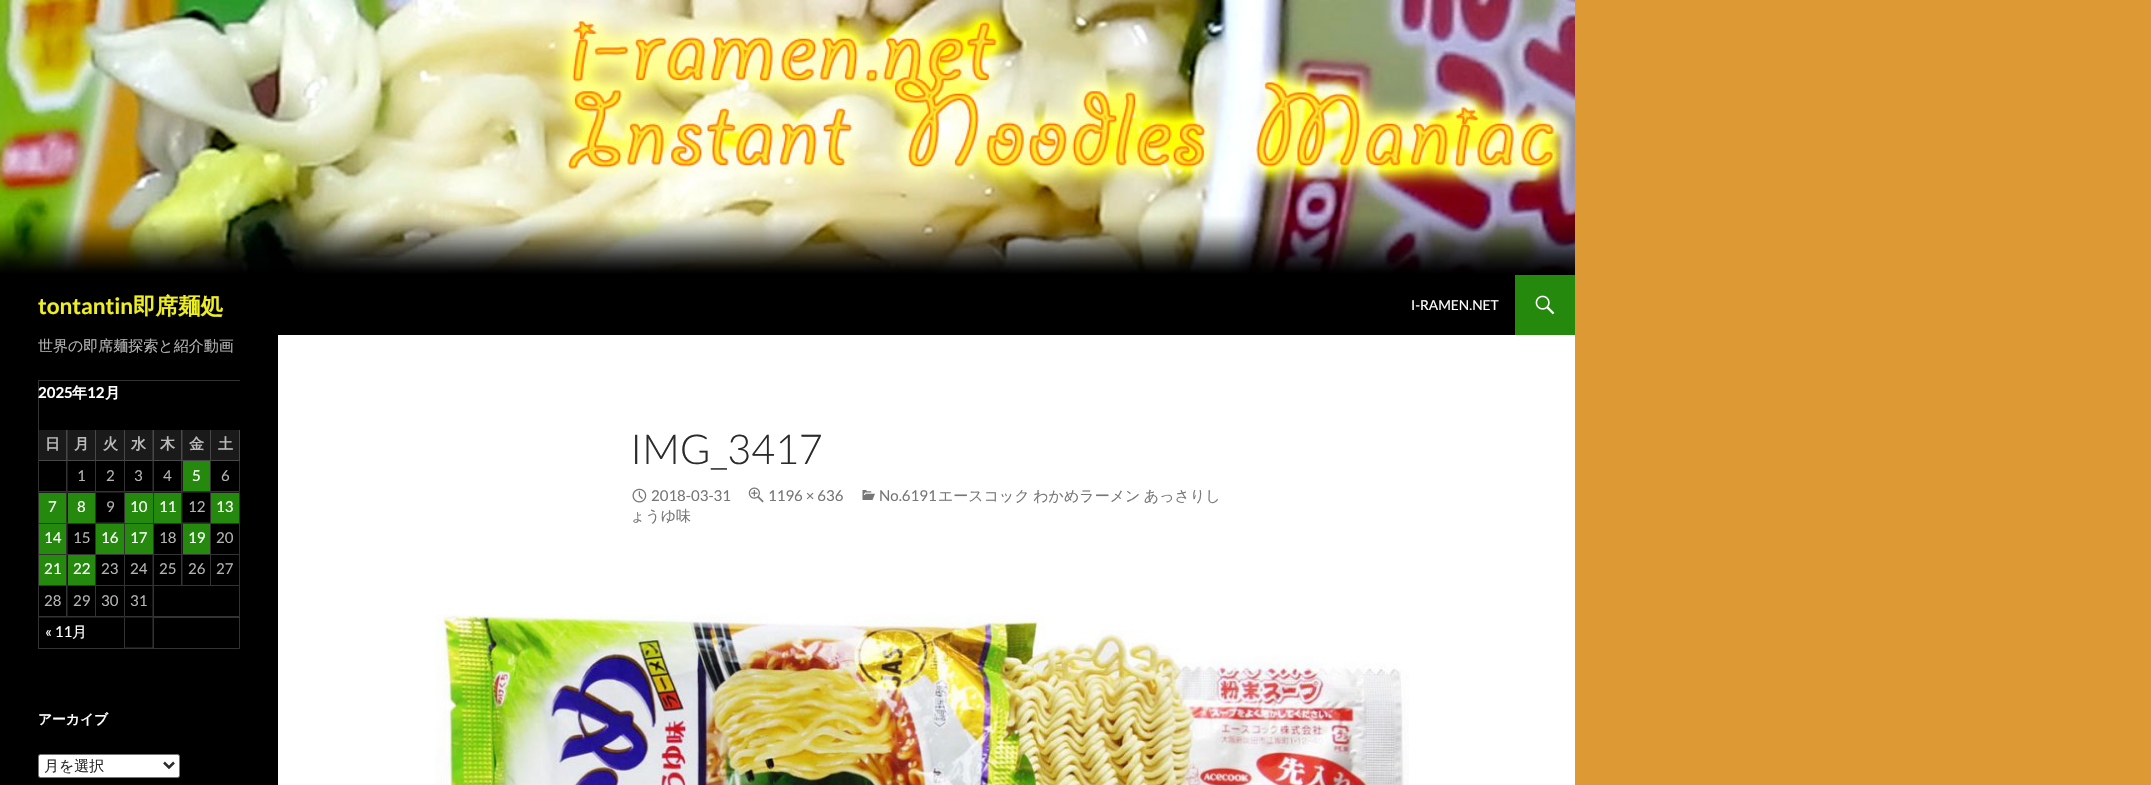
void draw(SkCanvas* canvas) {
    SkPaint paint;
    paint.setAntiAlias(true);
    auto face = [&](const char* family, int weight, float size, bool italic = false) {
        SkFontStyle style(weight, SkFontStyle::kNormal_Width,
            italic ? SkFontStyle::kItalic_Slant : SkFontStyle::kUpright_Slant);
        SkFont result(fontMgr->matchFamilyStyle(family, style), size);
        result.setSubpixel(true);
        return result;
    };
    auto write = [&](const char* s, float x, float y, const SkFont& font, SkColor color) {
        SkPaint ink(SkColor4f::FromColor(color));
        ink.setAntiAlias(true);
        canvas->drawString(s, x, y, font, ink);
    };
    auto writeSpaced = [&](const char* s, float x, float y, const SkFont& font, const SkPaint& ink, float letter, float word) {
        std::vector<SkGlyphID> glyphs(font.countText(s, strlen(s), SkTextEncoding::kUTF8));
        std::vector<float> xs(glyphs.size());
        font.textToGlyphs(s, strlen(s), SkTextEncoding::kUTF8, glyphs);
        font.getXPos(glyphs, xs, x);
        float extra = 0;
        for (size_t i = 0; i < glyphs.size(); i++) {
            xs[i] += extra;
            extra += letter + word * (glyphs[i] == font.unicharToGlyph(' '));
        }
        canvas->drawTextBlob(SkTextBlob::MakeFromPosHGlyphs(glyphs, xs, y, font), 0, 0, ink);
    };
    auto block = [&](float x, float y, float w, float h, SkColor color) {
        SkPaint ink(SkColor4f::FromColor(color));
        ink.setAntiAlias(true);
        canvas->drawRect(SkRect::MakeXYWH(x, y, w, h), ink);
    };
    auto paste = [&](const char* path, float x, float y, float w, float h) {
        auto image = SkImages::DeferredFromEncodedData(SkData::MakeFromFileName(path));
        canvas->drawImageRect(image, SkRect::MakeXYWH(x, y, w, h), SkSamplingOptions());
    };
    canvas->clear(SkColorSetRGB(221, 153, 51));
    block(278, 335, 1297, 450, SK_ColorWHITE);
    paste("pic1.png", 0, 0, 1575, 275);
    block(0, 275, 1515, 60, SK_ColorBLACK);
    auto kFont1 = face("Lato", 700, 22.5f);
    write("tontantin", 38, 314, kFont1, SkColorSetRGB(238, 238, 34));
    auto kFont2 = face("WenQuanYi Zen Hei", 700, 22.5f);
    write("即席麺処", 133, 314, kFont2, SkColorSetRGB(238, 238, 34));
    auto kFont3 = face("Lato", 400, 13.75f);
    write("I-RAMEN.NET", 1411, 310, kFont3, SK_ColorWHITE);
    block(1515, 275, 60, 60, SkColorSetRGB(36, 137, 13));
    paste("pic2.png", 1535, 295, 20, 20);
    block(0, 335, 278, 450, SK_ColorBLACK);
    auto kFont4 = face("WenQuanYi Zen Hei", 500, 15);
    write("世界の即席麺探索と紹介動画", 38, 351, kFont4, SkColorSetRGB(179, 179, 179));
    paint.setColor(SkColorSetRGB(51, 51, 51));
    canvas->drawPath(SkPathBuilder().moveTo(38, 380).lineTo(240, 380).lineTo(240, 381).lineTo(39, 381).close().detach(), paint);
    paint.setColor(SkColorSetARGB(51, 255, 255, 255));
    canvas->drawPath(SkPathBuilder().moveTo(38, 649).lineTo(38, 380).lineTo(39, 381).lineTo(39, 649).close().detach(), paint);
    auto kFont5 = face("Lato", 700, 15);
    write("2025", 38, 398, kFont5, SK_ColorWHITE);
    auto kFont6 = face("WenQuanYi Zen Hei", 700, 15);
    write("年", 72, 398, kFont6, SK_ColorWHITE);
    write("12", 87, 398, kFont5, SK_ColorWHITE);
    write("月", 105, 398, kFont6, SK_ColorWHITE);
    block(39, 430, 201, 31, SkColorSetRGB(26, 26, 26));
    paint.setColor(SkColorSetRGB(72, 72, 72));
    canvas->drawPath(SkPathBuilder().moveTo(67.5f, 430).lineTo(67.5f, 461).lineTo(66, 460).lineTo(66, 430).close().detach(), paint);
    paint.setColor(SkColorSetARGB(51, 255, 255, 255));
    canvas->drawPath(SkPathBuilder().moveTo(67.5f, 461).lineTo(39, 461).lineTo(39, 460).lineTo(66, 460).close().detach(), paint);
    write("日", 45, 449, kFont6, SkColorSetRGB(186, 186, 186));
    paint.setColor(SkColorSetRGB(72, 72, 72));
    canvas->drawPath(SkPathBuilder().moveTo(96, 430).lineTo(96, 461).lineTo(95, 460).lineTo(95, 430).close().detach(), paint);
    paint.setColor(SkColorSetARGB(51, 255, 255, 255));
    canvas->drawPath(SkPathBuilder().moveTo(96, 461).lineTo(67.5f, 461).lineTo(67.5f, 460).lineTo(95, 460).close().detach(), paint);
    write("月", 74, 449, kFont6, SkColorSetRGB(186, 186, 186));
    paint.setColor(SkColorSetRGB(72, 72, 72));
    canvas->drawPath(SkPathBuilder().moveTo(125, 430).lineTo(125, 461).lineTo(124, 460).lineTo(124, 430).close().detach(), paint);
    paint.setColor(SkColorSetARGB(51, 255, 255, 255));
    canvas->drawPath(SkPathBuilder().moveTo(125, 461).lineTo(96, 461).lineTo(96, 460).lineTo(124, 460).close().detach(), paint);
    write("火", 103, 449, kFont6, SkColorSetRGB(186, 186, 186));
    paint.setColor(SkColorSetRGB(72, 72, 72));
    canvas->drawPath(SkPathBuilder().moveTo(154, 430).lineTo(154, 461).lineTo(152.5f, 460).lineTo(152.5f, 430).close().detach(), paint);
    paint.setColor(SkColorSetARGB(51, 255, 255, 255));
    canvas->drawPath(SkPathBuilder().moveTo(154, 461).lineTo(125, 461).lineTo(125, 460).lineTo(152.5f, 460).close().detach(), paint);
    write("水", 131, 449, kFont6, SkColorSetRGB(186, 186, 186));
    paint.setColor(SkColorSetRGB(72, 72, 72));
    canvas->drawPath(SkPathBuilder().moveTo(182.5f, 430).lineTo(182.5f, 461).lineTo(181, 460).lineTo(181, 430).close().detach(), paint);
    paint.setColor(SkColorSetARGB(51, 255, 255, 255));
    canvas->drawPath(SkPathBuilder().moveTo(182.5f, 461).lineTo(154, 461).lineTo(154, 460).lineTo(181, 460).close().detach(), paint);
    write("木", 160, 449, kFont6, SkColorSetRGB(186, 186, 186));
    paint.setColor(SkColorSetRGB(72, 72, 72));
    canvas->drawPath(SkPathBuilder().moveTo(211, 430).lineTo(211, 461).lineTo(210, 460).lineTo(210, 430).close().detach(), paint);
    paint.setColor(SkColorSetARGB(51, 255, 255, 255));
    canvas->drawPath(SkPathBuilder().moveTo(211, 461).lineTo(182.5f, 461).lineTo(182.5f, 460).lineTo(210, 460).close().detach(), paint);
    write("金", 189, 449, kFont6, SkColorSetRGB(186, 186, 186));
    paint.setColor(SkColorSetRGB(72, 72, 72));
    canvas->drawPath(SkPathBuilder().moveTo(240, 430).lineTo(240, 461).lineTo(239, 460).lineTo(239, 430).close().detach(), paint);
    paint.setColor(SkColorSetARGB(51, 255, 255, 255));
    canvas->drawPath(SkPathBuilder().moveTo(240, 461).lineTo(211, 461).lineTo(211, 460).lineTo(239, 460).close().detach(), paint);
    write("土", 218, 449, kFont6, SkColorSetRGB(186, 186, 186));
    paint.setColor(SkColorSetRGB(51, 51, 51));
    canvas->drawPath(SkPathBuilder().moveTo(67.5f, 461).lineTo(67.5f, 492.5f).lineTo(66, 491).lineTo(66, 461).close().detach(), paint);
    paint.setColor(SkColorSetARGB(51, 255, 255, 255));
    canvas->drawPath(SkPathBuilder().moveTo(67.5f, 492.5f).lineTo(39, 492.5f).lineTo(39, 491).lineTo(66, 491).close().detach(), paint);
    paint.setColor(SkColorSetRGB(51, 51, 51));
    canvas->drawPath(SkPathBuilder().moveTo(96, 461).lineTo(96, 492.5f).lineTo(95, 491).lineTo(95, 461).close().detach(), paint);
    paint.setColor(SkColorSetARGB(51, 255, 255, 255));
    canvas->drawPath(SkPathBuilder().moveTo(96, 492.5f).lineTo(67.5f, 492.5f).lineTo(67.5f, 491).lineTo(95, 491).close().detach(), paint);
    auto kFont7 = face("Lato", 400, 15);
    write("1", 77, 481, kFont7, SkColorSetRGB(179, 179, 179));
    paint.setColor(SkColorSetRGB(51, 51, 51));
    canvas->drawPath(SkPathBuilder().moveTo(125, 461).lineTo(125, 492.5f).lineTo(124, 491).lineTo(124, 461).close().detach(), paint);
    canvas->drawPath(SkPathBuilder().moveTo(125, 492.5f).lineTo(96, 492.5f).lineTo(96, 491).lineTo(124, 491).close().moveTo(154, 461).lineTo(154, 492.5f).lineTo(152.5f, 491).lineTo(152.5f, 461).close().detach(), paint);
    write("2", 106, 481, kFont7, SkColorSetRGB(179, 179, 179));
    paint.setColor(SkColorSetARGB(51, 255, 255, 255));
    canvas->drawPath(SkPathBuilder().moveTo(154, 492.5f).lineTo(125, 492.5f).lineTo(125, 491).lineTo(152.5f, 491).close().detach(), paint);
    write("3", 134, 481, kFont7, SkColorSetRGB(179, 179, 179));
    paint.setColor(SkColorSetRGB(51, 51, 51));
    canvas->drawPath(SkPathBuilder().moveTo(182.5f, 461).lineTo(182.5f, 492.5f).lineTo(181, 491).lineTo(181, 461).close().detach(), paint);
    paint.setColor(SkColorSetARGB(51, 255, 255, 255));
    canvas->drawPath(SkPathBuilder().moveTo(182.5f, 492.5f).lineTo(154, 492.5f).lineTo(154, 491).lineTo(181, 491).close().detach(), paint);
    write("4", 163, 481, kFont7, SkColorSetRGB(179, 179, 179));
    paint.setColor(SkColorSetRGB(51, 51, 51));
    canvas->drawPath(SkPathBuilder().moveTo(211, 461).lineTo(211, 492.5f).lineTo(210, 491).lineTo(210, 461).close().detach(), paint);
    paint.setColor(SkColorSetARGB(51, 255, 255, 255));
    canvas->drawPath(SkPathBuilder().moveTo(211, 492.5f).lineTo(182.5f, 492.5f).lineTo(182.5f, 491).lineTo(210, 491).close().detach(), paint);
    block(183, 461, 27, 30, SkColorSetRGB(36, 137, 13));
    write("5", 192, 481, kFont7, SK_ColorWHITE);
    paint.setColor(SkColorSetRGB(51, 51, 51));
    canvas->drawPath(SkPathBuilder().moveTo(240, 461).lineTo(240, 492.5f).lineTo(239, 491).lineTo(239, 461).close().detach(), paint);
    canvas->drawPath(SkPathBuilder().moveTo(240, 492.5f).lineTo(211, 492.5f).lineTo(211, 491).lineTo(239, 491).close().detach(), paint);
    write("6", 221, 481, kFont7, SkColorSetRGB(179, 179, 179));
    canvas->drawPath(SkPathBuilder().moveTo(67.5f, 492.5f).lineTo(67.5f, 524).lineTo(66, 522.5f).lineTo(66, 492.5f).close().detach(), paint);
    paint.setColor(SkColorSetARGB(51, 255, 255, 255));
    canvas->drawPath(SkPathBuilder().moveTo(67.5f, 524).lineTo(39, 524).lineTo(39, 522.5f).lineTo(66, 522.5f).close().detach(), paint);
    block(39, 493, 27, 30, SkColorSetRGB(36, 137, 13));
    write("7", 48, 512, kFont7, SK_ColorWHITE);
    paint.setColor(SkColorSetRGB(51, 51, 51));
    canvas->drawPath(SkPathBuilder().moveTo(96, 492.5f).lineTo(96, 524).lineTo(95, 522.5f).lineTo(95, 492.5f).close().detach(), paint);
    paint.setColor(SkColorSetARGB(51, 255, 255, 255));
    canvas->drawPath(SkPathBuilder().moveTo(96, 524).lineTo(67.5f, 524).lineTo(67.5f, 522.5f).lineTo(95, 522.5f).close().detach(), paint);
    block(68, 493, 27, 30, SkColorSetRGB(36, 137, 13));
    write("8", 77, 512, kFont7, SK_ColorWHITE);
    paint.setColor(SkColorSetRGB(51, 51, 51));
    canvas->drawPath(SkPathBuilder().moveTo(125, 492.5f).lineTo(125, 524).lineTo(124, 522.5f).lineTo(124, 492.5f).close().detach(), paint);
    paint.setColor(SkColorSetARGB(51, 255, 255, 255));
    canvas->drawPath(SkPathBuilder().moveTo(125, 524).lineTo(96, 524).lineTo(96, 522.5f).lineTo(124, 522.5f).close().detach(), paint);
    write("9", 106, 512, kFont7, SkColorSetRGB(179, 179, 179));
    paint.setColor(SkColorSetRGB(51, 51, 51));
    canvas->drawPath(SkPathBuilder().moveTo(154, 492.5f).lineTo(154, 524).lineTo(152.5f, 522.5f).lineTo(152.5f, 492.5f).close().detach(), paint);
    paint.setColor(SkColorSetARGB(51, 255, 255, 255));
    canvas->drawPath(SkPathBuilder().moveTo(154, 524).lineTo(125, 524).lineTo(125, 522.5f).lineTo(152.5f, 522.5f).close().detach(), paint);
    block(125, 493, 28, 30, SkColorSetRGB(36, 137, 13));
    write("10", 130, 512, kFont7, SK_ColorWHITE);
    paint.setColor(SkColorSetRGB(51, 51, 51));
    canvas->drawPath(SkPathBuilder().moveTo(182.5f, 492.5f).lineTo(182.5f, 524).lineTo(181, 522.5f).lineTo(181, 492.5f).close().detach(), paint);
    paint.setColor(SkColorSetARGB(51, 255, 255, 255));
    canvas->drawPath(SkPathBuilder().moveTo(182.5f, 524).lineTo(154, 524).lineTo(154, 522.5f).lineTo(181, 522.5f).close().detach(), paint);
    block(154, 493, 27, 30, SkColorSetRGB(36, 137, 13));
    write("11", 159, 512, kFont7, SK_ColorWHITE);
    paint.setColor(SkColorSetRGB(51, 51, 51));
    canvas->drawPath(SkPathBuilder().moveTo(211, 492.5f).lineTo(211, 524).lineTo(210, 522.5f).lineTo(210, 492.5f).close().detach(), paint);
    paint.setColor(SkColorSetARGB(51, 255, 255, 255));
    canvas->drawPath(SkPathBuilder().moveTo(211, 524).lineTo(182.5f, 524).lineTo(182.5f, 522.5f).lineTo(210, 522.5f).close().detach(), paint);
    write("12", 188, 512, kFont7, SkColorSetRGB(179, 179, 179));
    paint.setColor(SkColorSetRGB(51, 51, 51));
    canvas->drawPath(SkPathBuilder().moveTo(240, 492.5f).lineTo(240, 524).lineTo(239, 522.5f).lineTo(239, 492.5f).close().detach(), paint);
    paint.setColor(SkColorSetARGB(51, 255, 255, 255));
    canvas->drawPath(SkPathBuilder().moveTo(240, 524).lineTo(211, 524).lineTo(211, 522.5f).lineTo(239, 522.5f).close().detach(), paint);
    block(211, 493, 28, 30, SkColorSetRGB(36, 137, 13));
    write("13", 216, 512, kFont7, SK_ColorWHITE);
    paint.setColor(SkColorSetRGB(51, 51, 51));
    canvas->drawPath(SkPathBuilder().moveTo(67.5f, 524).lineTo(67.5f, 555).lineTo(66, 554).lineTo(66, 524).close().detach(), paint);
    paint.setColor(SkColorSetARGB(51, 255, 255, 255));
    canvas->drawPath(SkPathBuilder().moveTo(67.5f, 555).lineTo(39, 555).lineTo(39, 554).lineTo(66, 554).close().detach(), paint);
    block(39, 524, 27, 30, SkColorSetRGB(36, 137, 13));
    write("14", 44, 543, kFont7, SK_ColorWHITE);
    paint.setColor(SkColorSetRGB(51, 51, 51));
    canvas->drawPath(SkPathBuilder().moveTo(96, 524).lineTo(96, 555).lineTo(95, 554).lineTo(95, 524).close().detach(), paint);
    paint.setColor(SkColorSetARGB(51, 255, 255, 255));
    canvas->drawPath(SkPathBuilder().moveTo(96, 555).lineTo(67.5f, 555).lineTo(67.5f, 554).lineTo(95, 554).close().detach(), paint);
    write("15", 73, 543, kFont7, SkColorSetRGB(179, 179, 179));
    paint.setColor(SkColorSetRGB(51, 51, 51));
    canvas->drawPath(SkPathBuilder().moveTo(125, 524).lineTo(125, 555).lineTo(124, 554).lineTo(124, 524).close().detach(), paint);
    paint.setColor(SkColorSetARGB(51, 255, 255, 255));
    canvas->drawPath(SkPathBuilder().moveTo(125, 555).lineTo(96, 555).lineTo(96, 554).lineTo(124, 554).close().detach(), paint);
    block(96, 524, 28, 30, SkColorSetRGB(36, 137, 13));
    write("16", 101, 543, kFont7, SK_ColorWHITE);
    paint.setColor(SkColorSetRGB(51, 51, 51));
    canvas->drawPath(SkPathBuilder().moveTo(154, 524).lineTo(154, 555).lineTo(152.5f, 554).lineTo(152.5f, 524).close().detach(), paint);
    paint.setColor(SkColorSetARGB(51, 255, 255, 255));
    canvas->drawPath(SkPathBuilder().moveTo(154, 555).lineTo(125, 555).lineTo(125, 554).lineTo(152.5f, 554).close().detach(), paint);
    block(125, 524, 28, 30, SkColorSetRGB(36, 137, 13));
    write("17", 130, 543, kFont7, SK_ColorWHITE);
    paint.setColor(SkColorSetRGB(51, 51, 51));
    canvas->drawPath(SkPathBuilder().moveTo(182.5f, 524).lineTo(182.5f, 555).lineTo(181, 554).lineTo(181, 524).close().detach(), paint);
    paint.setColor(SkColorSetARGB(51, 255, 255, 255));
    canvas->drawPath(SkPathBuilder().moveTo(182.5f, 555).lineTo(154, 555).lineTo(154, 554).lineTo(181, 554).close().detach(), paint);
    write("18", 159, 543, kFont7, SkColorSetRGB(179, 179, 179));
    paint.setColor(SkColorSetRGB(51, 51, 51));
    canvas->drawPath(SkPathBuilder().moveTo(211, 524).lineTo(211, 555).lineTo(210, 554).lineTo(210, 524).close().detach(), paint);
    paint.setColor(SkColorSetARGB(51, 255, 255, 255));
    canvas->drawPath(SkPathBuilder().moveTo(211, 555).lineTo(182.5f, 555).lineTo(182.5f, 554).lineTo(210, 554).close().detach(), paint);
    block(183, 524, 27, 30, SkColorSetRGB(36, 137, 13));
    write("19", 188, 543, kFont7, SK_ColorWHITE);
    paint.setColor(SkColorSetRGB(51, 51, 51));
    canvas->drawPath(SkPathBuilder().moveTo(240, 524).lineTo(240, 555).lineTo(239, 554).lineTo(239, 524).close().detach(), paint);
    paint.setColor(SkColorSetARGB(51, 255, 255, 255));
    canvas->drawPath(SkPathBuilder().moveTo(240, 555).lineTo(211, 555).lineTo(211, 554).lineTo(239, 554).close().detach(), paint);
    write("20", 216, 543, kFont7, SkColorSetRGB(179, 179, 179));
    paint.setColor(SkColorSetRGB(51, 51, 51));
    canvas->drawPath(SkPathBuilder().moveTo(67.5f, 555).lineTo(67.5f, 586).lineTo(66, 585).lineTo(66, 555).close().detach(), paint);
    paint.setColor(SkColorSetARGB(51, 255, 255, 255));
    canvas->drawPath(SkPathBuilder().moveTo(67.5f, 586).lineTo(39, 586).lineTo(39, 585).lineTo(66, 585).close().detach(), paint);
    block(39, 555, 27, 30, SkColorSetRGB(36, 137, 13));
    write("21", 44, 574, kFont7, SK_ColorWHITE);
    paint.setColor(SkColorSetRGB(51, 51, 51));
    canvas->drawPath(SkPathBuilder().moveTo(96, 555).lineTo(96, 586).lineTo(95, 585).lineTo(95, 555).close().detach(), paint);
    paint.setColor(SkColorSetARGB(51, 255, 255, 255));
    canvas->drawPath(SkPathBuilder().moveTo(96, 586).lineTo(67.5f, 586).lineTo(67.5f, 585).lineTo(95, 585).close().detach(), paint);
    block(68, 555, 27, 30, SkColorSetRGB(36, 137, 13));
    write("22", 73, 574, kFont7, SK_ColorWHITE);
    paint.setColor(SkColorSetRGB(51, 51, 51));
    canvas->drawPath(SkPathBuilder().moveTo(125, 555).lineTo(125, 586).lineTo(124, 585).lineTo(124, 555).close().detach(), paint);
    paint.setColor(SkColorSetARGB(51, 255, 255, 255));
    canvas->drawPath(SkPathBuilder().moveTo(125, 586).lineTo(96, 586).lineTo(96, 585).lineTo(124, 585).close().detach(), paint);
    write("23", 101, 574, kFont7, SkColorSetRGB(179, 179, 179));
    paint.setColor(SkColorSetRGB(51, 51, 51));
    canvas->drawPath(SkPathBuilder().moveTo(154, 555).lineTo(154, 586).lineTo(152.5f, 585).lineTo(152.5f, 555).close().detach(), paint);
    paint.setColor(SkColorSetARGB(51, 255, 255, 255));
    canvas->drawPath(SkPathBuilder().moveTo(154, 586).lineTo(125, 586).lineTo(125, 585).lineTo(152.5f, 585).close().detach(), paint);
    write("24", 130, 574, kFont7, SkColorSetRGB(179, 179, 179));
    paint.setColor(SkColorSetRGB(51, 51, 51));
    canvas->drawPath(SkPathBuilder().moveTo(182.5f, 555).lineTo(182.5f, 586).lineTo(181, 585).lineTo(181, 555).close().detach(), paint);
    paint.setColor(SkColorSetARGB(51, 255, 255, 255));
    canvas->drawPath(SkPathBuilder().moveTo(182.5f, 586).lineTo(154, 586).lineTo(154, 585).lineTo(181, 585).close().detach(), paint);
    write("25", 159, 574, kFont7, SkColorSetRGB(179, 179, 179));
    paint.setColor(SkColorSetRGB(51, 51, 51));
    canvas->drawPath(SkPathBuilder().moveTo(211, 555).lineTo(211, 586).lineTo(210, 585).lineTo(210, 555).close().detach(), paint);
    paint.setColor(SkColorSetARGB(51, 255, 255, 255));
    canvas->drawPath(SkPathBuilder().moveTo(211, 586).lineTo(182.5f, 586).lineTo(182.5f, 585).lineTo(210, 585).close().detach(), paint);
    write("26", 188, 574, kFont7, SkColorSetRGB(179, 179, 179));
    paint.setColor(SkColorSetRGB(51, 51, 51));
    canvas->drawPath(SkPathBuilder().moveTo(240, 555).lineTo(240, 586).lineTo(239, 585).lineTo(239, 555).close().detach(), paint);
    paint.setColor(SkColorSetARGB(51, 255, 255, 255));
    canvas->drawPath(SkPathBuilder().moveTo(240, 586).lineTo(211, 586).lineTo(211, 585).lineTo(239, 585).close().detach(), paint);
    write("27", 216, 574, kFont7, SkColorSetRGB(179, 179, 179));
    paint.setColor(SkColorSetRGB(51, 51, 51));
    canvas->drawPath(SkPathBuilder().moveTo(67.5f, 586).lineTo(67.5f, 617.5f).lineTo(66, 616).lineTo(66, 586).close().detach(), paint);
    paint.setColor(SkColorSetARGB(51, 255, 255, 255));
    canvas->drawPath(SkPathBuilder().moveTo(67.5f, 617.5f).lineTo(39, 617.5f).lineTo(39, 616).lineTo(66, 616).close().detach(), paint);
    write("28", 44, 606, kFont7, SkColorSetRGB(179, 179, 179));
    paint.setColor(SkColorSetRGB(51, 51, 51));
    canvas->drawPath(SkPathBuilder().moveTo(96, 586).lineTo(96, 617.5f).lineTo(95, 616).lineTo(95, 586).close().detach(), paint);
    paint.setColor(SkColorSetARGB(51, 255, 255, 255));
    canvas->drawPath(SkPathBuilder().moveTo(96, 617.5f).lineTo(67.5f, 617.5f).lineTo(67.5f, 616).lineTo(95, 616).close().detach(), paint);
    write("29", 73, 606, kFont7, SkColorSetRGB(179, 179, 179));
    paint.setColor(SkColorSetRGB(51, 51, 51));
    canvas->drawPath(SkPathBuilder().moveTo(125, 617.5f).lineTo(125, 649).lineTo(124, 647.5f).lineTo(124, 617.5f).close().detach(), paint);
    canvas->drawPath(SkPathBuilder().moveTo(125, 586).lineTo(125, 617.5f).lineTo(124, 616).lineTo(124, 586).close().detach(), paint);
    canvas->drawPath(SkPathBuilder().moveTo(154, 617.5f).lineTo(154, 649).lineTo(152.5f, 647.5f).lineTo(152.5f, 617.5f).close().detach(), paint);
    canvas->drawPath(SkPathBuilder().moveTo(125, 617.5f).lineTo(96, 617.5f).lineTo(96, 616).lineTo(124, 616).close().moveTo(154, 586).lineTo(154, 617.5f).lineTo(152.5f, 616).lineTo(152.5f, 586).close().detach(), paint);
    write("30", 101, 606, kFont7, SkColorSetRGB(179, 179, 179));
    paint.setColor(SkColorSetARGB(51, 255, 255, 255));
    canvas->drawPath(SkPathBuilder().moveTo(154, 617.5f).lineTo(125, 617.5f).lineTo(125, 616).lineTo(152.5f, 616).close().detach(), paint);
    write("31", 130, 606, kFont7, SkColorSetRGB(179, 179, 179));
    paint.setColor(SkColorSetRGB(51, 51, 51));
    canvas->drawPath(SkPathBuilder().moveTo(240, 617.5f).lineTo(240, 649).lineTo(239, 647.5f).lineTo(239, 617.5f).close().detach(), paint);
    canvas->drawPath(SkPathBuilder().moveTo(240, 586).lineTo(240, 617.5f).lineTo(239, 616).lineTo(239, 586).close().detach(), paint);
    paint.setColor(SkColorSetARGB(51, 255, 255, 255));
    canvas->drawPath(SkPathBuilder().moveTo(240, 618).lineTo(154, 618).lineTo(154, 616).lineTo(239, 616).close().detach(), paint);
    canvas->drawPath(SkPathBuilder().moveTo(125, 649).lineTo(39, 649).lineTo(39, 648).lineTo(124, 648).close().detach(), paint);
    write("« 11", 45, 637, kFont7, SK_ColorWHITE);
    write("月", 72, 637, kFont4, SK_ColorWHITE);
    canvas->drawPath(SkPathBuilder().moveTo(154, 649).lineTo(125, 649).lineTo(125, 647.5f).lineTo(152.5f, 647.5f).close().detach(), paint);
    canvas->drawPath(SkPathBuilder().moveTo(240, 649).lineTo(154, 649).lineTo(154, 648).lineTo(239, 648).close().detach(), paint);
    auto kFont8 = face("WenQuanYi Zen Hei", 700, 13.75f);
    write("アーカイブ", 38, 724, kFont8, SK_ColorWHITE);
    paint.setColor(SK_ColorWHITE);
    canvas->drawRoundRect(SkRect::MakeXYWH(38.5f, 754.5f, 141, 23), 2, 2, paint);
    paint.setStyle(SkPaint::kStroke_Style);
    paint.setStrokeWidth(1);
    paint.setColor(SkColorSetRGB(118, 118, 118));
    canvas->drawRoundRect(SkRect::MakeXYWH(38.5f, 754.5f, 141, 23), 2, 2, paint);
    paint.setStrokeWidth(2.5f);
    paint.setColor(SkColorSetRGB(43, 43, 43));
    canvas->drawPath(SkPathBuilder().moveTo(164, 762.5f).lineTo(169, 767.5f).lineTo(174, 762.5f).detach(), paint);
    write("月を選択", 44, 771, kFont4, SkColorSetRGB(43, 43, 43));
    auto kFont9 = face("Lato", 300, 41.25f);
    write("IMG_3417", 630, 464, kFont9, SkColorSetRGB(43, 43, 43));
    paste("pic3.png", 862, 490, 13, 10);
    write("No.6191", 879, 501, kFont7, SkColorSetRGB(118, 118, 118));
    paint.setStyle(SkPaint::kFill_Style);
    paint.setColor(SkColorSetRGB(118, 118, 118));
    writeSpaced("エースコック わかめラーメン あっさりし", 938, 501, kFont4, paint, 0, -1);
    write("ょうゆ味", 630, 521, kFont4, SkColorSetRGB(118, 118, 118));
    paste("pic4.png", 632, 488, 15, 15);
    write("2018-03-31", 651, 501, kFont7, SkColorSetRGB(118, 118, 118));
    paste("pic5.png", 748, 487, 16, 16);
    write("1196 × 636", 768, 501, kFont7, SkColorSetRGB(118, 118, 118));
    paste("pic6.png", 435, 614, 974, 171);
}
